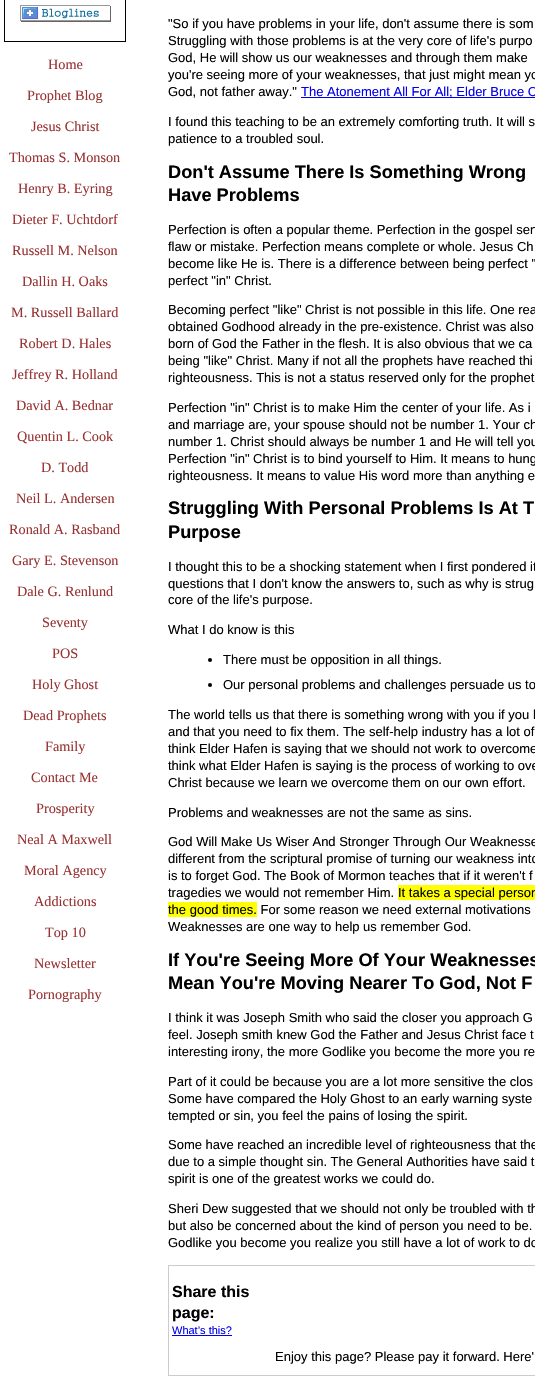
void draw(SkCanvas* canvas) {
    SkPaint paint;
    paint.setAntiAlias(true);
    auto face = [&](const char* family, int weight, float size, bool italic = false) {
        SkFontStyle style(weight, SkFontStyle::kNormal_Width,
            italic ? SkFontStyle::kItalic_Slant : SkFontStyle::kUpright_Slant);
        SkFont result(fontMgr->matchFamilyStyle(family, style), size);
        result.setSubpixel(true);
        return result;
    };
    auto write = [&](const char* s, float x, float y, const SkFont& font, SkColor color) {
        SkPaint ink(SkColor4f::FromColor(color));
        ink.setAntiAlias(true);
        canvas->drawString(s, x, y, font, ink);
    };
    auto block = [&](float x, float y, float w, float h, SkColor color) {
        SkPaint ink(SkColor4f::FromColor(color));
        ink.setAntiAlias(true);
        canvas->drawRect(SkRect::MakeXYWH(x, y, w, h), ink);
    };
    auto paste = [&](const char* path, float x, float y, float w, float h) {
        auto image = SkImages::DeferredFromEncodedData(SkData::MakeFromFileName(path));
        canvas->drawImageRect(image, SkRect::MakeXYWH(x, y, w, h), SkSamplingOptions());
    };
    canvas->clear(SK_ColorWHITE);
    paint.setStyle(SkPaint::kStroke_Style);
    paint.setStrokeWidth(1);
    paint.setColor(SK_ColorBLACK);
    canvas->drawRect(SkRect::MakeXYWH(4.5f, -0.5f, 121, 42), paint);
    paste("pic1.png", 20, 5, 91, 17);
    auto kFont1 = face("Liberation Serif", 400, 14.25f);
    write("Home", 48, 69, kFont1, SkColorSetRGB(153, 51, 51));
    write("Prophet Blog", 27, 100, kFont1, SkColorSetRGB(153, 51, 51));
    write("Jesus Christ", 31, 131, kFont1, SkColorSetRGB(153, 51, 51));
    write("Thomas S. Monson", 9, 162, kFont1, SkColorSetRGB(153, 51, 51));
    write("Henry B. Eyring", 18, 193, kFont1, SkColorSetRGB(153, 51, 51));
    write("Dieter F. Uchtdorf", 12, 224, kFont1, SkColorSetRGB(153, 51, 51));
    write("Russell M. Nelson", 12, 255, kFont1, SkColorSetRGB(153, 51, 51));
    write("Dallin H. Oaks", 22, 286, kFont1, SkColorSetRGB(153, 51, 51));
    write("M. Russell Ballard", 11, 317, kFont1, SkColorSetRGB(153, 51, 51));
    write("Robert D. Hales", 19, 348, kFont1, SkColorSetRGB(153, 51, 51));
    write("Jeffrey R. Holland", 12, 379, kFont1, SkColorSetRGB(153, 51, 51));
    write("David A. Bednar", 16, 410, kFont1, SkColorSetRGB(153, 51, 51));
    write("Quentin L. Cook", 17, 441, kFont1, SkColorSetRGB(153, 51, 51));
    write("D. Todd", 41, 472, kFont1, SkColorSetRGB(153, 51, 51));
    write("Neil L. Andersen", 16, 503, kFont1, SkColorSetRGB(153, 51, 51));
    write("Ronald A. Rasband", 9, 534, kFont1, SkColorSetRGB(153, 51, 51));
    write("Gary E. Stevenson", 12, 565, kFont1, SkColorSetRGB(153, 51, 51));
    write("Dale G. Renlund", 17, 596, kFont1, SkColorSetRGB(153, 51, 51));
    write("Seventy", 42, 627, kFont1, SkColorSetRGB(153, 51, 51));
    write("POS", 52, 658, kFont1, SkColorSetRGB(153, 51, 51));
    write("Holy Ghost", 32, 689, kFont1, SkColorSetRGB(153, 51, 51));
    write("Dead Prophets", 23, 720, kFont1, SkColorSetRGB(153, 51, 51));
    write("Family", 45, 751, kFont1, SkColorSetRGB(153, 51, 51));
    write("Contact Me", 31, 782, kFont1, SkColorSetRGB(153, 51, 51));
    write("Prosperity", 36, 813, kFont1, SkColorSetRGB(153, 51, 51));
    write("Neal A Maxwell", 17, 844, kFont1, SkColorSetRGB(153, 51, 51));
    write("Moral Agency", 24, 875, kFont1, SkColorSetRGB(153, 51, 51));
    write("Addictions", 34, 906, kFont1, SkColorSetRGB(153, 51, 51));
    write("Top 10", 45, 937, kFont1, SkColorSetRGB(153, 51, 51));
    write("Newsletter", 34, 968, kFont1, SkColorSetRGB(153, 51, 51));
    write("Pornography", 28, 999, kFont1, SkColorSetRGB(153, 51, 51));
    auto kFont2 = face("Liberation Sans", 400, 13);
    write("\"So if you have problems in your life, don't assume there is som", 168, 28, kFont2, SK_ColorBLACK);
    write("Struggling with those problems is at the very core of life's purpo", 168, 45, kFont2, SK_ColorBLACK);
    write("God, He will show us our weaknesses and through them make", 168, 62, kFont2, SK_ColorBLACK);
    write("you're seeing more of your weaknesses, that just might mean yo", 168, 79, kFont2, SK_ColorBLACK);
    write("God, not father away.\"", 168, 96, kFont2, SK_ColorBLACK);
    block(301, 97, 234, 1, SkColorSetRGB(0, 0, 238));
    write("The Atonement All For All; Elder Bruce C", 301, 96, kFont2, SkColorSetRGB(0, 0, 238));
    write("I found this teaching to be an extremely comforting truth. It will s", 168, 126, kFont2, SK_ColorBLACK);
    write("patience to a troubled soul.", 168, 143, kFont2, SK_ColorBLACK);
    auto kFont3 = face("Liberation Sans", 700, 18.2f);
    write("Don't Assume There Is Something Wrong", 168, 178, kFont3, SK_ColorBLACK);
    write("Have Problems", 168, 201, kFont3, SK_ColorBLACK);
    write("Perfection is often a popular theme. Perfection in the gospel sen", 168, 234, kFont2, SK_ColorBLACK);
    write("flaw or mistake. Perfection means complete or whole. Jesus Ch", 168, 251, kFont2, SK_ColorBLACK);
    write("become like He is. There is a difference between being perfect \"", 168, 268, kFont2, SK_ColorBLACK);
    write("perfect \"in\" Christ.", 168, 285, kFont2, SK_ColorBLACK);
    write("Becoming perfect \"like\" Christ is not possible in this life. One rea", 168, 314, kFont2, SK_ColorBLACK);
    write("obtained Godhood already in the pre-existence. Christ was also", 168, 331, kFont2, SK_ColorBLACK);
    write("born of God the Father in the flesh. It is also obvious that we ca", 168, 348, kFont2, SK_ColorBLACK);
    write("being \"like\" Christ. Many if not all the prophets have reached thi", 168, 365, kFont2, SK_ColorBLACK);
    write("righteousness. This is not a status reserved only for the prophet", 168, 382, kFont2, SK_ColorBLACK);
    write("Perfection \"in\" Christ is to make Him the center of your life. As i", 168, 412, kFont2, SK_ColorBLACK);
    write("and marriage are, your spouse should not be number 1. Your ch", 168, 429, kFont2, SK_ColorBLACK);
    write("number 1. Christ should always be number 1 and He will tell you", 168, 446, kFont2, SK_ColorBLACK);
    write("Perfection \"in\" Christ is to bind yourself to Him. It means to hung", 168, 463, kFont2, SK_ColorBLACK);
    write("righteousness. It means to value His word more than anything e", 168, 480, kFont2, SK_ColorBLACK);
    write("Struggling With Personal Problems Is At T", 168, 514, kFont3, SK_ColorBLACK);
    write("Purpose", 168, 538, kFont3, SK_ColorBLACK);
    write("I thought this to be a shocking statement when I first pondered it", 168, 571, kFont2, SK_ColorBLACK);
    write("questions that I don't know the answers to, such as why is strug", 168, 588, kFont2, SK_ColorBLACK);
    write("core of the life's purpose.", 168, 604, kFont2, SK_ColorBLACK);
    write("What I do know is this", 168, 634, kFont2, SK_ColorBLACK);
    paint.setStyle(SkPaint::kFill_Style);
    canvas->drawCircle(210, 660, 2, paint);
    write("There must be opposition in all things.", 223, 664, kFont2, SK_ColorBLACK);
    canvas->drawCircle(210, 685, 2, paint);
    write("Our personal problems and challenges persuade us to", 223, 689, kFont2, SK_ColorBLACK);
    write("The world tells us that there is something wrong with you if you h", 168, 719, kFont2, SK_ColorBLACK);
    write("and that you need to fix them. The self-help industry has a lot of", 168, 736, kFont2, SK_ColorBLACK);
    write("think Elder Hafen is saying that we should not work to overcome", 168, 753, kFont2, SK_ColorBLACK);
    write("think what Elder Hafen is saying is the process of working to ove", 168, 770, kFont2, SK_ColorBLACK);
    write("Christ because we learn we overcome them on our own effort.", 168, 787, kFont2, SK_ColorBLACK);
    write("Problems and weaknesses are not the same as sins.", 168, 817, kFont2, SK_ColorBLACK);
    write("God Will Make Us Wiser And Stronger Through Our Weaknesse", 168, 846, kFont2, SK_ColorBLACK);
    write("different from the scriptural promise of turning our weakness into", 168, 863, kFont2, SK_ColorBLACK);
    write("is to forget God. The Book of Mormon teaches that if it weren't f", 168, 880, kFont2, SK_ColorBLACK);
    write("tragedies we would not remember Him.", 168, 897, kFont2, SK_ColorBLACK);
    block(398, 885, 137, 15, SkColorSetRGB(255, 255, 0));
    write("It takes a special person", 398, 897, kFont2, SK_ColorBLACK);
    block(168, 902, 89, 15, SkColorSetRGB(255, 255, 0));
    write("the good times. For some reason we need external motivations", 168, 914, kFont2, SK_ColorBLACK);
    write("Weaknesses are one way to help us remember God.", 168, 931, kFont2, SK_ColorBLACK);
    write("If You're Seeing More Of Your Weaknesses", 168, 966, kFont3, SK_ColorBLACK);
    write("Mean You're Moving Nearer To God, Not F", 168, 989, kFont3, SK_ColorBLACK);
    write("I think it was Joseph Smith who said the closer you approach G", 168, 1022, kFont2, SK_ColorBLACK);
    write("feel. Joseph smith knew God the Father and Jesus Christ face t", 168, 1039, kFont2, SK_ColorBLACK);
    write("interesting irony, the more Godlike you become the more you re", 168, 1056, kFont2, SK_ColorBLACK);
    write("Part of it could be because you are a lot more sensitive the clos", 168, 1086, kFont2, SK_ColorBLACK);
    write("Some have compared the Holy Ghost to an early warning syste", 168, 1103, kFont2, SK_ColorBLACK);
    write("tempted or sin, you feel the pains of losing the spirit.", 168, 1120, kFont2, SK_ColorBLACK);
    write("Some have reached an incredible level of righteousness that the", 168, 1149, kFont2, SK_ColorBLACK);
    write("due to a simple thought sin. The General Authorities have said t", 168, 1166, kFont2, SK_ColorBLACK);
    write("spirit is one of the greatest works we could do.", 168, 1183, kFont2, SK_ColorBLACK);
    write("Sheri Dew suggested that we should not only be troubled with th", 168, 1213, kFont2, SK_ColorBLACK);
    write("but also be concerned about the kind of person you need to be.", 168, 1230, kFont2, SK_ColorBLACK);
    write("Godlike you become you realize you still have a lot of work to do", 168, 1247, kFont2, SK_ColorBLACK);
    paint.setStyle(SkPaint::kStroke_Style);
    paint.setColor(SkColorSetRGB(204, 204, 204));
    canvas->drawRect(SkRect::MakeXYWH(168.5f, 1265.5f, 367, 110), paint);
    auto kFont4 = face("Liberation Sans", 700, 16);
    write("Share this", 172, 1297, kFont4, SK_ColorBLACK);
    write("page:", 172, 1318, kFont4, SK_ColorBLACK);
    auto kFont5 = face("Liberation Sans", 400, 11);
    write("What’s this?", 172, 1334, kFont5, SkColorSetRGB(0, 0, 238));
    block(172, 1335, 60, 1, SkColorSetRGB(0, 0, 238));
    write("Enjoy this page? Please pay it forward. Here'", 275, 1361, kFont2, SK_ColorBLACK);
}
